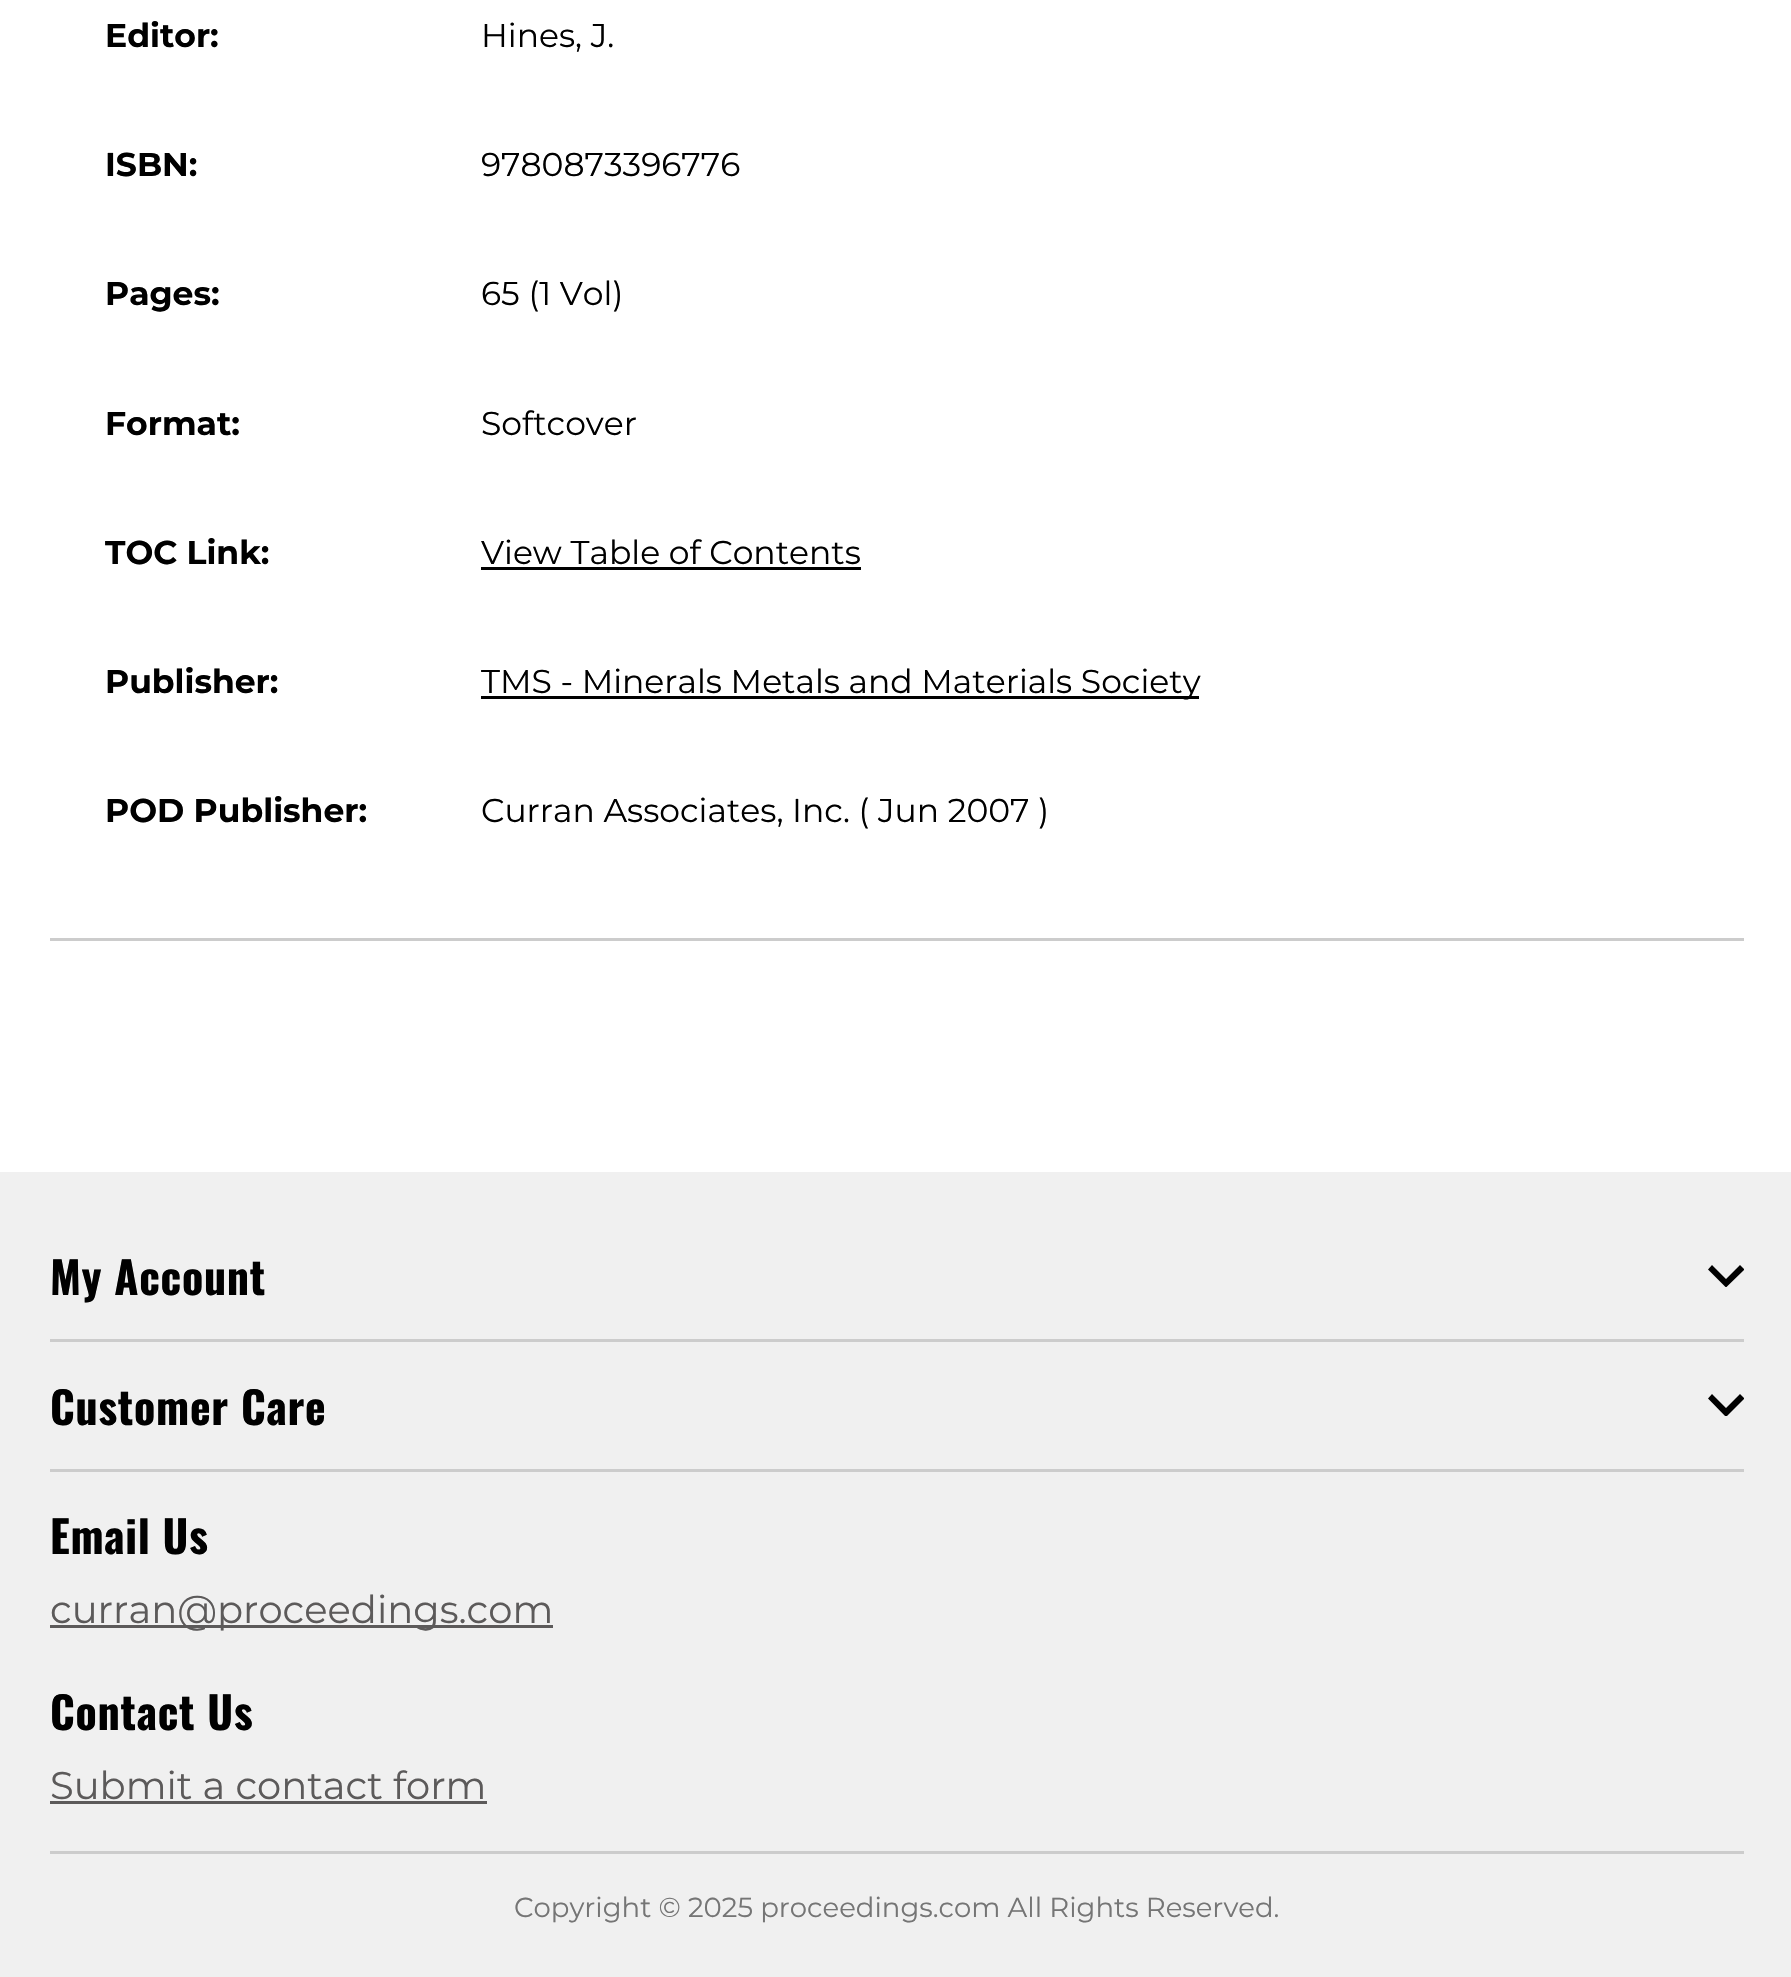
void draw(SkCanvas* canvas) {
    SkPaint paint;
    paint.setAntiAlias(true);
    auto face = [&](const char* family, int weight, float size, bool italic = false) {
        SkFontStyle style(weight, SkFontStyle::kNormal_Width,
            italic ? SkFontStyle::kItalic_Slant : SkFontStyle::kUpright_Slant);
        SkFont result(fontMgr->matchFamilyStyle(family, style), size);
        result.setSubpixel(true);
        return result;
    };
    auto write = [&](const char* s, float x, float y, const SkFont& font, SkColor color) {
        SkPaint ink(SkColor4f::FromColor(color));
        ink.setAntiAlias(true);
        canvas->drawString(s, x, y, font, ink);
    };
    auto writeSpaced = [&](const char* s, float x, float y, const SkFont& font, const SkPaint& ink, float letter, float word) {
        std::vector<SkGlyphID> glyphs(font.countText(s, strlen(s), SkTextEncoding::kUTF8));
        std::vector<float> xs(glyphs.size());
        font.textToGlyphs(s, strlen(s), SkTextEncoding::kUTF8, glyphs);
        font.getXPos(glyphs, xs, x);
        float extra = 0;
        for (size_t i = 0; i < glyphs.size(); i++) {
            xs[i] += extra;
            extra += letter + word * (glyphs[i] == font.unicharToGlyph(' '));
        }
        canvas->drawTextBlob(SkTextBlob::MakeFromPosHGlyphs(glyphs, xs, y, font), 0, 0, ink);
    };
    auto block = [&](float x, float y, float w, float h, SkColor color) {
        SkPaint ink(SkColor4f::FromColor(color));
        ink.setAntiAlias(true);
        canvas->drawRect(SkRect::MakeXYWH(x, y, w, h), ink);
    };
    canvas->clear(SK_ColorWHITE);
    block(50, 938, 1694, 3, SkColorSetRGB(204, 204, 204));
    auto kFont1 = face("Montserrat", 700, 33);
    write("Editor:", 105, 47, kFont1, SK_ColorBLACK);
    auto kFont2 = face("Montserrat", 400, 33);
    write("Hines, J.", 481, 47, kFont2, SK_ColorBLACK);
    write("ISBN:", 105, 176, kFont1, SK_ColorBLACK);
    write("9780873396776", 481, 176, kFont2, SK_ColorBLACK);
    write("Pages:", 105, 305, kFont1, SK_ColorBLACK);
    write("65 (1 Vol)", 481, 305, kFont2, SK_ColorBLACK);
    write("Format:", 105, 435, kFont1, SK_ColorBLACK);
    write("Softcover", 481, 435, kFont2, SK_ColorBLACK);
    write("TOC Link:", 105, 564, kFont1, SK_ColorBLACK);
    write("View Table of Contents", 481, 564, kFont2, SK_ColorBLACK);
    block(481, 567, 380, 3, SK_ColorBLACK);
    write("Publisher:", 105, 693, kFont1, SK_ColorBLACK);
    block(481, 696, 718, 3, SK_ColorBLACK);
    write("TMS - Minerals Metals and Materials Society", 481, 693, kFont2, SK_ColorBLACK);
    write("POD Publisher:", 105, 822, kFont1, SK_ColorBLACK);
    write("Curran Associates, Inc. ( Jun 2007 )", 481, 822, kFont2, SK_ColorBLACK);
    block(0, 1172, 1791, 805, SkColorSetRGB(240, 240, 240));
    block(50, 1339, 1694, 3, SkColorSetRGB(204, 204, 204));
    auto kFont3 = face("Oswald", 700, 44);
    paint.setColor(SK_ColorBLACK);
    writeSpaced("My Account", 50, 1295, kFont3, paint, 0.75f, 0);
    canvas->save();
    canvas->clipRect(SkRect::MakeXYWH(1708, 1265, 36, 22));
    canvas->drawPath(SkPathBuilder().moveTo(1740, 1265).lineTo(1726, 1279).lineTo(1712, 1265).lineTo(1708, 1269.5f).lineTo(1726, 1287.5f).lineTo(1744.5f, 1269.5f).close().detach(), paint);
    canvas->restore();
    block(50, 1469, 1694, 3, SkColorSetRGB(204, 204, 204));
    writeSpaced("Customer Care", 50, 1425, kFont3, paint, 0.75f, 0);
    canvas->save();
    canvas->clipRect(SkRect::MakeXYWH(1708, 1394, 36, 22));
    canvas->drawPath(SkPathBuilder().moveTo(1740, 1394).lineTo(1726, 1408).lineTo(1712, 1394).lineTo(1708, 1398.5f).lineTo(1726, 1417).lineTo(1744.5f, 1398.5f).close().detach(), paint);
    canvas->restore();
    block(50, 1851, 1694, 3, SkColorSetRGB(204, 204, 204));
    writeSpaced("Email Us", 50, 1554, kFont3, paint, 0.75f, 0);
    block(50, 1625, 503, 3, SkColorSetRGB(92, 90, 90));
    auto kFont4 = face("Montserrat", 400, 38.5f);
    write("curran@proceedings.com", 50, 1623, kFont4, SkColorSetRGB(92, 90, 90));
    writeSpaced("Contact Us", 50, 1730, kFont3, paint, 0.75f, 0);
    write("Submit a contact form", 50, 1799, kFont4, SkColorSetRGB(92, 90, 90));
    block(50, 1801, 437, 3, SkColorSetRGB(92, 90, 90));
    auto kFont5 = face("Montserrat", 400, 27.5f);
    write("Copyright © 2025 proceedings.com All Rights Reserved.", 514, 1917, kFont5, SkColorSetRGB(117, 117, 117));
}
